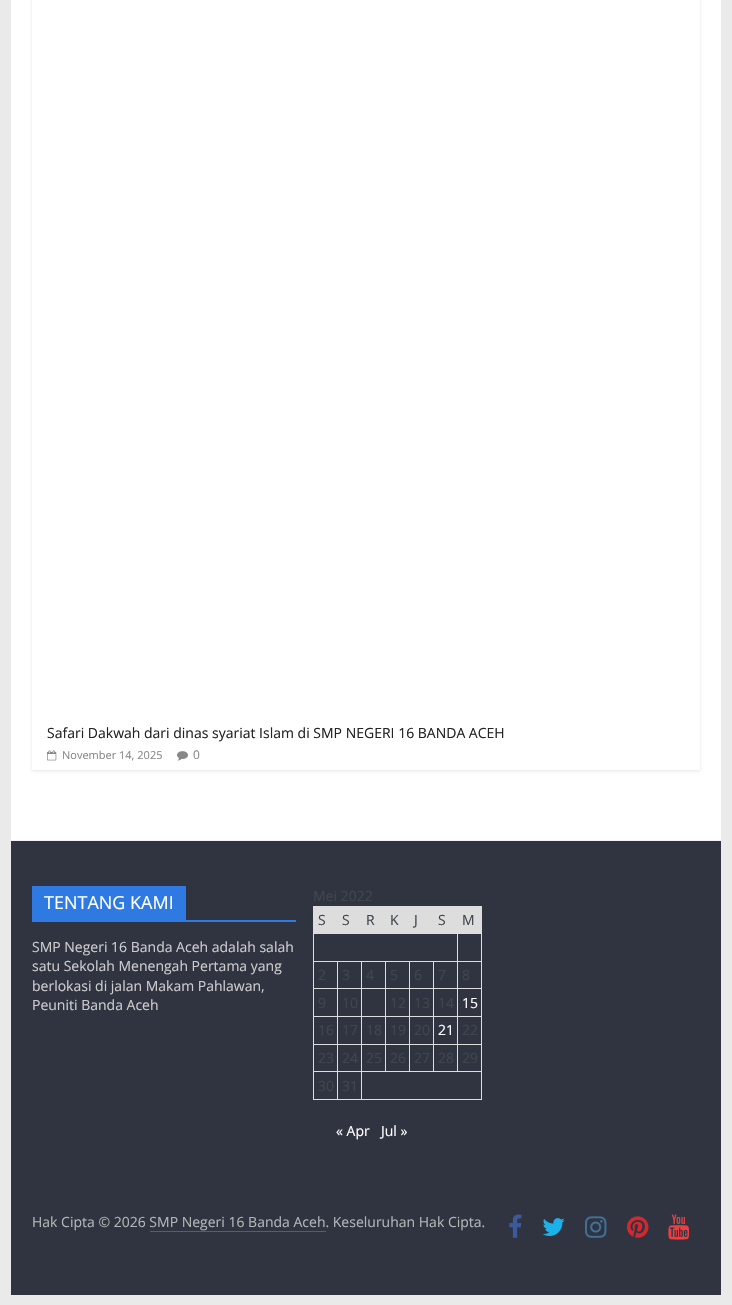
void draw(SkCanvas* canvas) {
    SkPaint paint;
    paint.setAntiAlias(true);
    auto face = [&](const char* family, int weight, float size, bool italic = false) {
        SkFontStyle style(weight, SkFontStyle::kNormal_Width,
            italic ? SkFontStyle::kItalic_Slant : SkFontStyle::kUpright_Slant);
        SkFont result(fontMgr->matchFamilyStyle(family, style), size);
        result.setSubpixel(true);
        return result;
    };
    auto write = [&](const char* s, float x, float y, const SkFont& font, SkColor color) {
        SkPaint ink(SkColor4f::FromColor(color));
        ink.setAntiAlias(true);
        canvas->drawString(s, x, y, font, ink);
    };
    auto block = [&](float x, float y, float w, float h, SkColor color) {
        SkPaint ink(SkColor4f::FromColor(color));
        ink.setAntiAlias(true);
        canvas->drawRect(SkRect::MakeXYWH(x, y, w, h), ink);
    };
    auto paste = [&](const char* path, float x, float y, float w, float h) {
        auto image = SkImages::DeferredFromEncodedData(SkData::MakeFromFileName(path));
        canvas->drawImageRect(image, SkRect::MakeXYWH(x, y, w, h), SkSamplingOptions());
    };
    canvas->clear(SkColorSetRGB(234, 234, 234));
    block(11, 0, 710, 840, SK_ColorWHITE);
    canvas->save();
    canvas->clipPath(SkPathBuilder(SkPathFillType::kEvenOdd).moveTo(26, 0).lineTo(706, 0).lineTo(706, 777).lineTo(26, 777).close().moveTo(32, -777).lineTo(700, -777).lineTo(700, 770).lineTo(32, 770).close().detach(), true);
    paint.setColor(SkColorSetARGB(26, 0, 0, 0));
    paint.setMaskFilter(SkMaskFilter::MakeBlur(kNormal_SkBlurStyle, 1.5f));
    canvas->drawRect(SkRect::MakeXYWH(32, -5, 668, 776), paint);
    paint.setMaskFilter(nullptr);
    canvas->restore();
    auto kFont1 = face("Open Sans", 400, 14);
    write("Safari Dakwah dari dinas syariat Islam di SMP NEGERI 16 BANDA ACEH", 47, 738, kFont1, SkColorSetRGB(35, 35, 35));
    paste("pic1.png", 47, 750, 10, 11);
    auto kFont2 = face("Open Sans", 400, 11);
    write("November 14, 2025", 62, 759, kFont2, SkColorSetRGB(136, 136, 136));
    paste("pic2.png", 177, 751, 11, 10);
    auto kFont3 = face("Open Sans", 400, 12);
    write("0", 193, 759, kFont3, SkColorSetRGB(136, 136, 136));
    block(11, 841, 710, 454, SkColorSetRGB(48, 52, 64));
    block(11, 840, 710, 1, SkColorSetRGB(242, 242, 242));
    block(32, 920, 264, 2, SkColorSetRGB(47, 122, 226));
    block(32, 886, 154, 34, SkColorSetRGB(47, 122, 226));
    auto kFont4 = face("Open Sans", 400, 18);
    write("TENTANG KAMI", 44, 909, kFont4, SK_ColorWHITE);
    write("SMP Negeri 16 Banda Aceh adalah salah", 32, 952, kFont1, SkColorSetRGB(204, 204, 204));
    write("satu Sekolah Menengah Pertama yang", 32, 971, kFont1, SkColorSetRGB(204, 204, 204));
    write("berlokasi di jalan Makam Pahlawan,", 32, 991, kFont1, SkColorSetRGB(204, 204, 204));
    write("Peuniti Banda Aceh", 32, 1010, kFont1, SkColorSetRGB(204, 204, 204));
    write("Mei 2022", 313, 901, kFont1, SkColorSetRGB(64, 70, 77));
    block(314, 907, 24, 26, SkColorSetRGB(221, 221, 221));
    block(313, 906, 25, 1, SkColorSetRGB(221, 221, 221));
    block(457, 961, 25, 1, SkColorSetRGB(221, 221, 221));
    block(457, 988, 25, 1, SkColorSetRGB(221, 221, 221));
    block(457, 1016, 25, 1, SkColorSetRGB(221, 221, 221));
    block(457, 1044, 25, 1, SkColorSetRGB(221, 221, 221));
    block(361, 1071, 121, 1, SkColorSetRGB(221, 221, 221));
    block(457, 1044, 1, 28, SkColorSetRGB(221, 221, 221));
    block(433, 1044, 25, 1, SkColorSetRGB(221, 221, 221));
    block(457, 1016, 1, 29, SkColorSetRGB(221, 221, 221));
    block(433, 1016, 25, 1, SkColorSetRGB(221, 221, 221));
    block(457, 988, 1, 29, SkColorSetRGB(221, 221, 221));
    block(433, 988, 25, 1, SkColorSetRGB(221, 221, 221));
    block(457, 961, 1, 28, SkColorSetRGB(221, 221, 221));
    block(433, 961, 25, 1, SkColorSetRGB(221, 221, 221));
    block(457, 933, 1, 29, SkColorSetRGB(221, 221, 221));
    block(313, 933, 145, 1, SkColorSetRGB(221, 221, 221));
    block(433, 1044, 1, 28, SkColorSetRGB(221, 221, 221));
    block(409, 1044, 25, 1, SkColorSetRGB(221, 221, 221));
    block(433, 1016, 1, 29, SkColorSetRGB(221, 221, 221));
    block(409, 1016, 25, 1, SkColorSetRGB(221, 221, 221));
    block(433, 988, 1, 29, SkColorSetRGB(221, 221, 221));
    block(409, 988, 25, 1, SkColorSetRGB(221, 221, 221));
    block(433, 961, 1, 28, SkColorSetRGB(221, 221, 221));
    block(409, 961, 25, 1, SkColorSetRGB(221, 221, 221));
    block(409, 1044, 1, 28, SkColorSetRGB(221, 221, 221));
    block(385, 1044, 25, 1, SkColorSetRGB(221, 221, 221));
    block(409, 1016, 1, 29, SkColorSetRGB(221, 221, 221));
    block(385, 1016, 25, 1, SkColorSetRGB(221, 221, 221));
    block(409, 988, 1, 29, SkColorSetRGB(221, 221, 221));
    block(385, 988, 25, 1, SkColorSetRGB(221, 221, 221));
    block(409, 961, 1, 28, SkColorSetRGB(221, 221, 221));
    block(385, 961, 25, 1, SkColorSetRGB(221, 221, 221));
    block(385, 1044, 1, 28, SkColorSetRGB(221, 221, 221));
    block(361, 1044, 25, 1, SkColorSetRGB(221, 221, 221));
    block(385, 1016, 1, 29, SkColorSetRGB(221, 221, 221));
    block(361, 1016, 25, 1, SkColorSetRGB(221, 221, 221));
    block(385, 988, 1, 29, SkColorSetRGB(221, 221, 221));
    block(361, 988, 25, 1, SkColorSetRGB(221, 221, 221));
    block(385, 961, 1, 28, SkColorSetRGB(221, 221, 221));
    block(361, 961, 25, 1, SkColorSetRGB(221, 221, 221));
    block(481, 1071, 1, 29, SkColorSetRGB(221, 221, 221));
    block(361, 1099, 121, 1, SkColorSetRGB(221, 221, 221));
    block(361, 1071, 1, 29, SkColorSetRGB(221, 221, 221));
    block(337, 1071, 25, 1, SkColorSetRGB(221, 221, 221));
    block(361, 1044, 1, 28, SkColorSetRGB(221, 221, 221));
    block(337, 1044, 25, 1, SkColorSetRGB(221, 221, 221));
    block(361, 1016, 1, 29, SkColorSetRGB(221, 221, 221));
    block(337, 1016, 25, 1, SkColorSetRGB(221, 221, 221));
    block(361, 988, 1, 29, SkColorSetRGB(221, 221, 221));
    block(337, 988, 25, 1, SkColorSetRGB(221, 221, 221));
    block(361, 961, 1, 28, SkColorSetRGB(221, 221, 221));
    block(337, 961, 25, 1, SkColorSetRGB(221, 221, 221));
    block(337, 1099, 25, 1, SkColorSetRGB(221, 221, 221));
    block(337, 1071, 1, 29, SkColorSetRGB(221, 221, 221));
    block(313, 1071, 25, 1, SkColorSetRGB(221, 221, 221));
    block(337, 1044, 1, 28, SkColorSetRGB(221, 221, 221));
    block(313, 1044, 25, 1, SkColorSetRGB(221, 221, 221));
    block(337, 1016, 1, 29, SkColorSetRGB(221, 221, 221));
    block(313, 1016, 25, 1, SkColorSetRGB(221, 221, 221));
    block(337, 988, 1, 29, SkColorSetRGB(221, 221, 221));
    block(313, 988, 25, 1, SkColorSetRGB(221, 221, 221));
    block(337, 961, 1, 28, SkColorSetRGB(221, 221, 221));
    block(313, 961, 25, 1, SkColorSetRGB(221, 221, 221));
    block(313, 1099, 25, 1, SkColorSetRGB(221, 221, 221));
    block(313, 1071, 1, 29, SkColorSetRGB(221, 221, 221));
    block(313, 1044, 1, 28, SkColorSetRGB(221, 221, 221));
    block(313, 1016, 1, 29, SkColorSetRGB(221, 221, 221));
    block(313, 988, 1, 29, SkColorSetRGB(221, 221, 221));
    block(313, 961, 1, 28, SkColorSetRGB(221, 221, 221));
    block(313, 933, 1, 29, SkColorSetRGB(221, 221, 221));
    block(313, 906, 1, 28, SkColorSetRGB(221, 221, 221));
    write("S", 318, 925, kFont1, SkColorSetRGB(64, 70, 77));
    block(338, 906, 120, 27, SkColorSetRGB(221, 221, 221));
    write("S", 342, 925, kFont1, SkColorSetRGB(64, 70, 77));
    write("R", 366, 925, kFont1, SkColorSetRGB(64, 70, 77));
    write("K", 390, 925, kFont1, SkColorSetRGB(64, 70, 77));
    write("J", 414, 925, kFont1, SkColorSetRGB(64, 70, 77));
    write("S", 438, 925, kFont1, SkColorSetRGB(64, 70, 77));
    block(458, 906, 24, 28, SkColorSetRGB(221, 221, 221));
    write("M", 462, 925, kFont1, SkColorSetRGB(64, 70, 77));
    write("2", 318, 980, kFont1, SkColorSetRGB(64, 70, 77));
    write("3", 342, 980, kFont1, SkColorSetRGB(64, 70, 77));
    write("4", 366, 980, kFont1, SkColorSetRGB(64, 70, 77));
    write("5", 390, 980, kFont1, SkColorSetRGB(64, 70, 77));
    write("6", 414, 980, kFont1, SkColorSetRGB(64, 70, 77));
    write("7", 438, 980, kFont1, SkColorSetRGB(64, 70, 77));
    block(481, 1044, 1, 28, SkColorSetRGB(221, 221, 221));
    block(481, 1016, 1, 29, SkColorSetRGB(221, 221, 221));
    block(481, 988, 1, 29, SkColorSetRGB(221, 221, 221));
    block(481, 933, 1, 56, SkColorSetRGB(221, 221, 221));
    write("8", 462, 980, kFont1, SkColorSetRGB(64, 70, 77));
    write("9", 318, 1008, kFont1, SkColorSetRGB(64, 70, 77));
    write("10", 342, 1008, kFont1, SkColorSetRGB(64, 70, 77));
    write("12", 390, 1008, kFont1, SkColorSetRGB(64, 70, 77));
    write("13", 414, 1008, kFont1, SkColorSetRGB(64, 70, 77));
    write("14", 438, 1008, kFont1, SkColorSetRGB(64, 70, 77));
    write("15", 462, 1008, kFont1, SK_ColorWHITE);
    write("16", 318, 1035, kFont1, SkColorSetRGB(64, 70, 77));
    write("17", 342, 1035, kFont1, SkColorSetRGB(64, 70, 77));
    write("18", 366, 1035, kFont1, SkColorSetRGB(64, 70, 77));
    write("19", 390, 1035, kFont1, SkColorSetRGB(64, 70, 77));
    write("20", 414, 1035, kFont1, SkColorSetRGB(64, 70, 77));
    write("21", 438, 1035, kFont1, SK_ColorWHITE);
    write("22", 462, 1035, kFont1, SkColorSetRGB(64, 70, 77));
    write("23", 318, 1063, kFont1, SkColorSetRGB(64, 70, 77));
    write("24", 342, 1063, kFont1, SkColorSetRGB(64, 70, 77));
    write("25", 366, 1063, kFont1, SkColorSetRGB(64, 70, 77));
    write("26", 390, 1063, kFont1, SkColorSetRGB(64, 70, 77));
    write("27", 414, 1063, kFont1, SkColorSetRGB(64, 70, 77));
    write("28", 438, 1063, kFont1, SkColorSetRGB(64, 70, 77));
    write("29", 462, 1063, kFont1, SkColorSetRGB(64, 70, 77));
    write("30", 318, 1091, kFont1, SkColorSetRGB(64, 70, 77));
    write("31", 342, 1091, kFont1, SkColorSetRGB(64, 70, 77));
    write("« Apr", 336, 1136, kFont1, SK_ColorWHITE);
    write("Jul »", 381, 1136, kFont1, SK_ColorWHITE);
    write("Hak Cipta © 2026 SMP Negeri 16 Banda Aceh. Keseluruhan Hak Cipta.", 32, 1227, kFont1, SkColorSetRGB(177, 182, 182));
    block(150, 1231, 176, 1, SkColorSetRGB(90, 93, 98));
    paste("pic3.png", 509, 1214, 13, 24);
    paste("pic4.png", 542, 1218, 23, 18);
    paste("pic5.png", 585, 1216, 22, 22);
    paste("pic6.png", 627, 1216, 22, 22);
    paste("pic7.png", 668, 1214, 22, 26);
}
